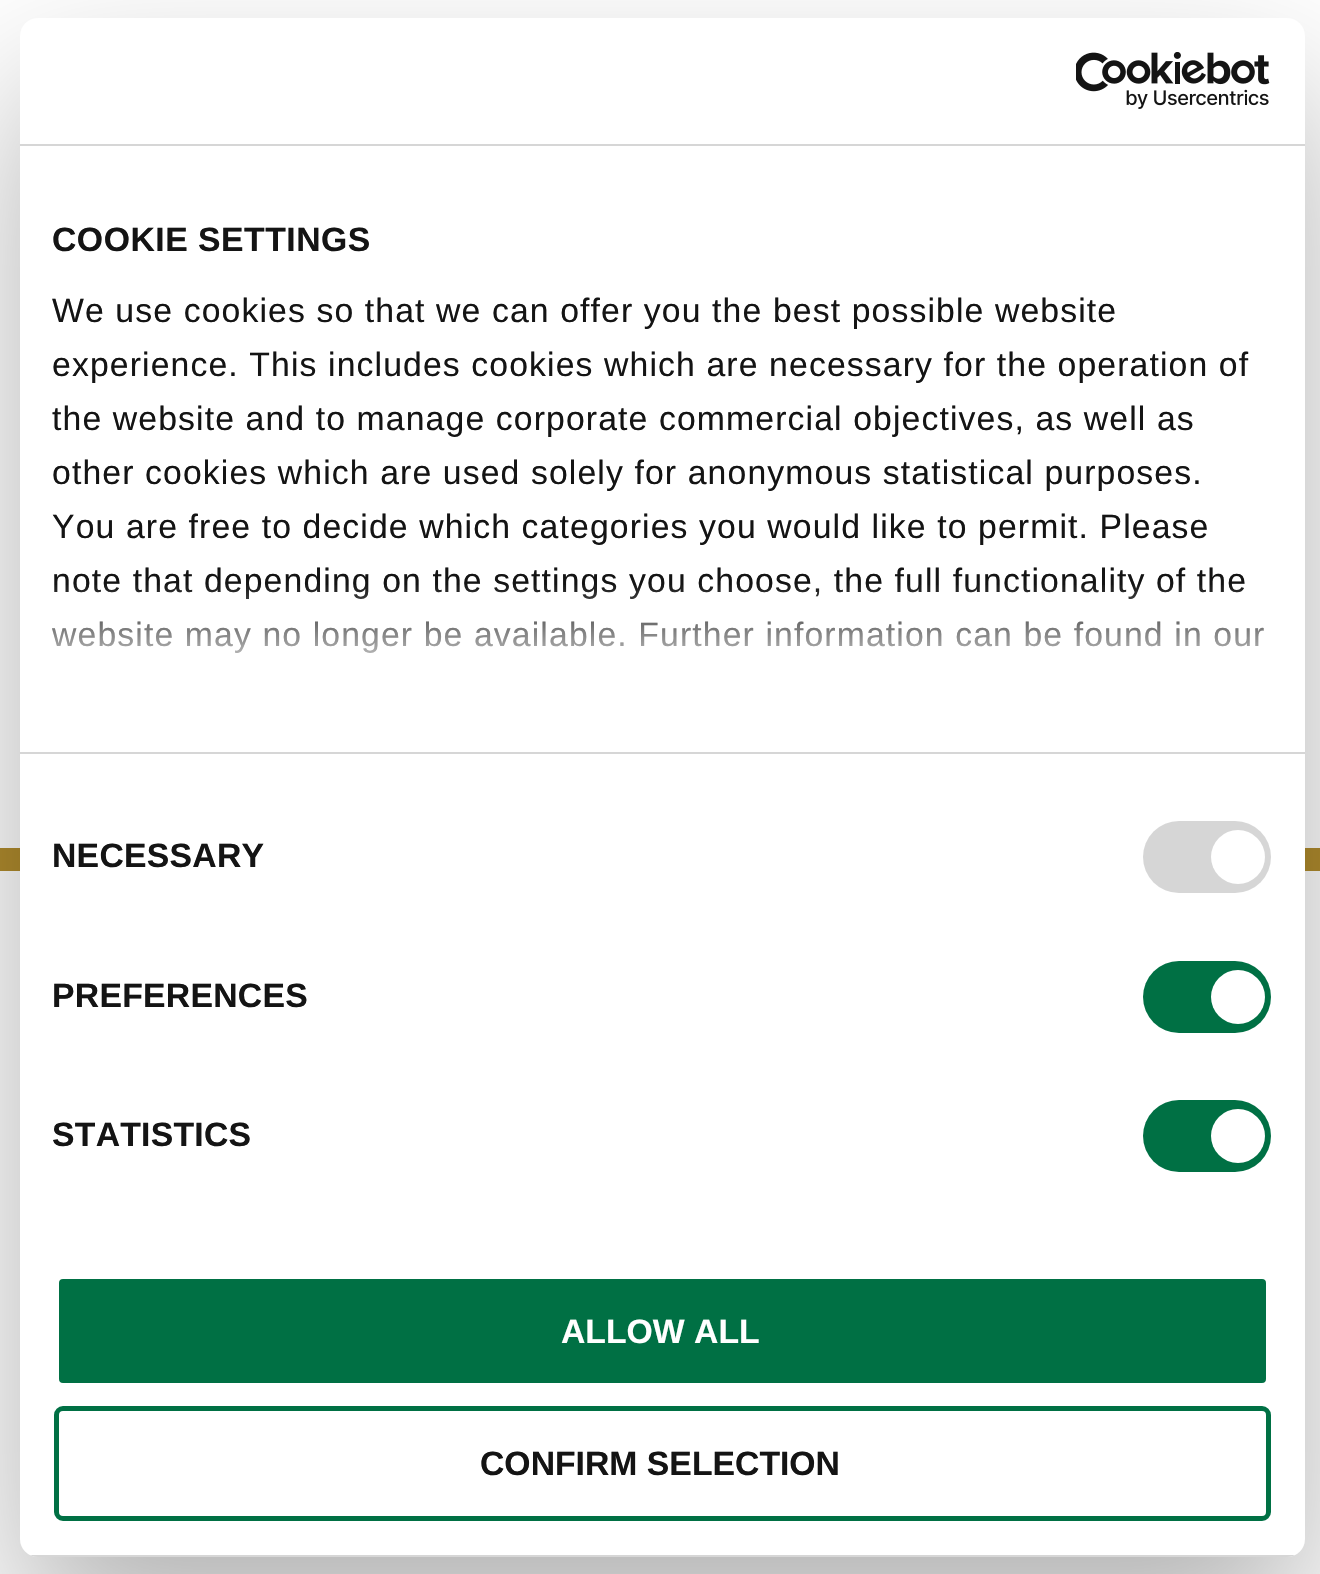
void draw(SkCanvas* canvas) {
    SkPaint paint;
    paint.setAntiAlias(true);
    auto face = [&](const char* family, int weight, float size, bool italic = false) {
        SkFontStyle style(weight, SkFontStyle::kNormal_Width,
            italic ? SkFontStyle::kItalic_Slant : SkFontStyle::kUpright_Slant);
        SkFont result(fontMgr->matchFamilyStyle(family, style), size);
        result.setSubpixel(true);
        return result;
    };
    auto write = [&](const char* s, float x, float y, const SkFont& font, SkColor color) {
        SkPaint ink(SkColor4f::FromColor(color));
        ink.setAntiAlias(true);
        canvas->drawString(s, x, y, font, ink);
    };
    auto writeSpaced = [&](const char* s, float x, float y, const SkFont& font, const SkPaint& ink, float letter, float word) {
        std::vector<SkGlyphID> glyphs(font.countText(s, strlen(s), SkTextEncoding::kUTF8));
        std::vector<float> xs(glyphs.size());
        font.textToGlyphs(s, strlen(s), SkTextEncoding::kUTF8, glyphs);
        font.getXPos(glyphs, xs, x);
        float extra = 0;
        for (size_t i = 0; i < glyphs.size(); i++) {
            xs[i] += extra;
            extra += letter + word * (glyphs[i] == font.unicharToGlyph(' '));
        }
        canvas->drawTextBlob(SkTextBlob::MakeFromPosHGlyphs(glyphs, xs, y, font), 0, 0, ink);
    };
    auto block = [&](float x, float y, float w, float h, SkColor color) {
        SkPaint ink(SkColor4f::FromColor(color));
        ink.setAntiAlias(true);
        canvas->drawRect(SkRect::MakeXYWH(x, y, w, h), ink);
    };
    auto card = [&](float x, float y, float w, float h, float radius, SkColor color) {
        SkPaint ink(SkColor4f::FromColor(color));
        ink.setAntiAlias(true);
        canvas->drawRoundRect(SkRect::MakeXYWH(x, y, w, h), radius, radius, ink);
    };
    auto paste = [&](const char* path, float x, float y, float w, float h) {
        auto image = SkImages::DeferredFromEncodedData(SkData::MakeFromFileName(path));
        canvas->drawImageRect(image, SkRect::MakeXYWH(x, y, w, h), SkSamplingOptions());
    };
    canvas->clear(SK_ColorWHITE);
    block(0, 848, 1320, 23, SkColorSetRGB(177, 140, 45));
    paint.setColor(SkColorSetARGB(77, 0, 0, 0));
    paint.setMaskFilter(SkMaskFilter::MakeBlur(kNormal_SkBlurStyle, 76.5f));
    canvas->drawRoundRect(SkRect::MakeXYWH(20, 90, 1285, 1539), 18, 18, paint);
    paint.setMaskFilter(nullptr);
    card(20, 18, 1285, 1539, 18, SK_ColorWHITE);
    block(20, 144, 1285, 2, SkColorSetRGB(214, 214, 214));
    paste("pic1.png", 1076, 52, 194, 57);
    block(20, 752, 1285, 2, SkColorSetRGB(214, 214, 214));
    auto kFont1 = face("Liberation Sans", 700, 33.75f);
    paint.setColor(SkColorSetRGB(20, 20, 20));
    writeSpaced("COOKIE SETTINGS", 52, 251, kFont1, paint, 0.5f, 0);
    auto kFont2 = face("Liberation Sans", 400, 33.75f);
    writeSpaced("We use cookies so that we can offer you the best possible website", 52, 322, kFont2, paint, 1.12f, 0);
    writeSpaced("experience. This includes cookies which are necessary for the operation of", 52, 376, kFont2, paint, 1.12f, 0);
    writeSpaced("the website and to manage corporate commercial objectives, as well as", 52, 430, kFont2, paint, 1.12f, 0);
    writeSpaced("other cookies which are used solely for anonymous statistical purposes.", 52, 484, kFont2, paint, 1.12f, 0);
    writeSpaced("You are free to decide which categories you would like to permit. Please", 52, 538, kFont2, paint, 1.12f, 0);
    writeSpaced("note that depending on the settings you choose, the full functionality of the", 52, 592, kFont2, paint, 1.12f, 0);
    writeSpaced("website may no longer be available. Further information can be found in our", 52, 646, kFont2, paint, 1.12f, 0);
    {
        const SkColor colors[] = {SK_ColorWHITE, SkColorSetARGB(204, 255, 255, 255), SkColorSetARGB(0, 255, 255, 255)};
        const float stops[] = {0, 0.5f, 1};
        const SkPoint ends[] = {{647, 752}, {647, 583}};
        paint.setShader(SkGradientShader::MakeLinear(ends, colors, stops, 3, SkTileMode::kClamp));
        paint.setAlpha(255);
    }
    canvas->drawRect(SkRect::MakeXYWH(51, 585, 1213, 68), paint);
    paint.setShader(nullptr);
    paint.setColor(SkColorSetRGB(20, 20, 20));
    writeSpaced("NECESSARY", 52, 867, kFont1, paint, 0.25f, 0);
    card(1143, 821, 128, 72, 36, SkColorSetRGB(214, 214, 214));
    paint.setColor(SK_ColorWHITE);
    canvas->drawCircle(1238, 857, 27, paint);
    paint.setColor(SkColorSetRGB(20, 20, 20));
    writeSpaced("PREFERENCES", 52, 1007, kFont1, paint, 0.25f, 0);
    card(1143, 961, 128, 72, 36, SkColorSetRGB(0, 112, 68));
    paint.setColor(SK_ColorWHITE);
    canvas->drawCircle(1238, 997, 27, paint);
    paint.setColor(SkColorSetRGB(20, 20, 20));
    writeSpaced("STATISTICS", 52, 1146, kFont1, paint, 0.25f, 0);
    card(1143, 1100, 128, 72, 36, SkColorSetRGB(0, 112, 68));
    paint.setColor(SK_ColorWHITE);
    canvas->drawCircle(1238, 1136, 27, paint);
    canvas->save();
    canvas->clipPath(SkPathBuilder().moveTo(38, 18).lineTo(1287, 18).cubicTo(1297, 18, 1305, 26, 1305, 36).lineTo(1305, 1539).cubicTo(1305, 1549, 1297, 1557, 1287, 1557).lineTo(38, 1557).cubicTo(28, 1557, 20, 1549, 20, 1539).lineTo(20, 36).cubicTo(20, 26, 28, 18, 38, 18).close().detach(), true);
    block(30, 1555, 1265, 2, SkColorSetRGB(214, 214, 214));
    canvas->restore();
    paint.setColor(SkColorSetRGB(0, 112, 68));
    canvas->drawRoundRect(SkRect::MakeXYWH(56.5f, 1276.5f, 1212, 109), 6.5f, 6.5f, paint);
    paint.setStyle(SkPaint::kStroke_Style);
    paint.setStrokeWidth(5);
    paint.setColor(SK_ColorWHITE);
    canvas->drawRoundRect(SkRect::MakeXYWH(56.5f, 1276.5f, 1212, 109), 6.5f, 6.5f, paint);
    write("ALLOW ALL", 561, 1343, kFont1, SK_ColorWHITE);
    paint.setColor(SkColorSetRGB(0, 112, 68));
    canvas->drawRoundRect(SkRect::MakeXYWH(56.5f, 1408.5f, 1212, 110), 6.5f, 6.5f, paint);
    write("CONFIRM SELECTION", 480, 1475, kFont1, SkColorSetRGB(20, 20, 20));
}
